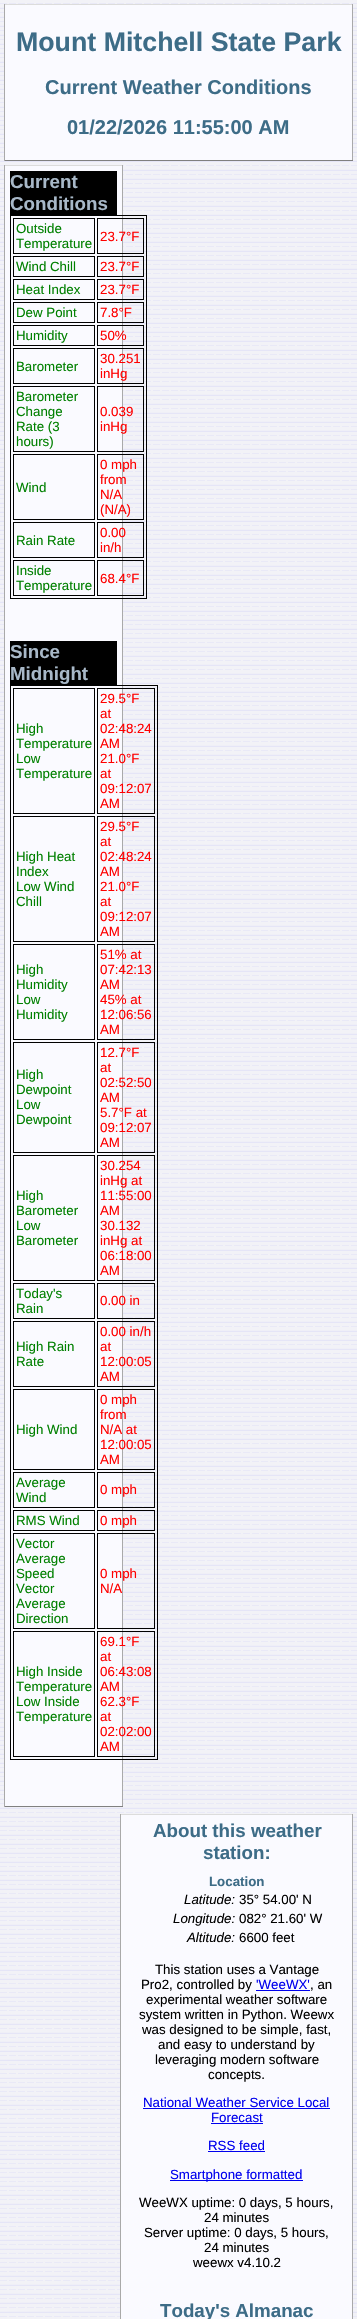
void draw(SkCanvas* canvas) {
    SkPaint paint;
    paint.setAntiAlias(true);
    auto face = [&](const char* family, int weight, float size, bool italic = false) {
        SkFontStyle style(weight, SkFontStyle::kNormal_Width,
            italic ? SkFontStyle::kItalic_Slant : SkFontStyle::kUpright_Slant);
        SkFont result(fontMgr->matchFamilyStyle(family, style), size);
        result.setSubpixel(true);
        return result;
    };
    auto write = [&](const char* s, float x, float y, const SkFont& font, SkColor color) {
        SkPaint ink(SkColor4f::FromColor(color));
        ink.setAntiAlias(true);
        canvas->drawString(s, x, y, font, ink);
    };
    auto block = [&](float x, float y, float w, float h, SkColor color) {
        SkPaint ink(SkColor4f::FromColor(color));
        ink.setAntiAlias(true);
        canvas->drawRect(SkRect::MakeXYWH(x, y, w, h), ink);
    };
    auto paste = [&](const char* path, float x, float y, float w, float h) {
        auto image = SkImages::DeferredFromEncodedData(SkData::MakeFromFileName(path));
        canvas->drawImageRect(image, SkRect::MakeXYWH(x, y, w, h), SkSamplingOptions());
    };
    canvas->clear(SkColorSetRGB(242, 242, 247));
    paste("pic1.png", 0, 3, 357, 2314);
    block(5, 5, 347, 155, SkColorSetRGB(250, 250, 255));
    block(4, 4, 349, 1, SkColorSetRGB(220, 220, 220));
    block(352, 4, 1, 157, SkColorSetRGB(169, 169, 169));
    block(4, 160, 349, 1, SkColorSetRGB(128, 128, 128));
    block(4, 4, 1, 157, SkColorSetRGB(169, 169, 169));
    auto kFont1 = face("Liberation Sans", 700, 26.75f);
    write("Mount Mitchell State Park", 16, 51, kFont1, SkColorSetRGB(61, 108, 135));
    auto kFont2 = face("Liberation Sans", 700, 20);
    write("Current Weather Conditions", 45, 94, kFont2, SkColorSetRGB(61, 108, 135));
    write("01/22/2026 11:55:00 AM", 67, 134, kFont2, SkColorSetRGB(61, 108, 135));
    block(5, 166, 117, 1640, SkColorSetRGB(250, 250, 255));
    block(4, 165, 119, 1, SkColorSetRGB(220, 220, 220));
    block(122, 165, 1, 1642, SkColorSetRGB(169, 169, 169));
    block(4, 1806, 119, 1, SkColorSetRGB(128, 128, 128));
    block(4, 165, 1, 1642, SkColorSetRGB(169, 169, 169));
    block(10, 171, 107, 44, SK_ColorBLACK);
    auto kFont3 = face("Liberation Sans", 700, 18.75f);
    write("Current", 10, 188, kFont3, SkColorSetRGB(168, 184, 200));
    write("Conditions", 10, 210, kFont3, SkColorSetRGB(168, 184, 200));
    paint.setStyle(SkPaint::kStroke_Style);
    paint.setStrokeWidth(1);
    paint.setColor(SK_ColorBLACK);
    canvas->drawRect(SkRect::MakeXYWH(10.5f, 215.5f, 136, 383), paint);
    canvas->drawRect(SkRect::MakeXYWH(13.5f, 218.5f, 81, 35), paint);
    auto kFont4 = face("Liberation Sans", 400, 13.3f);
    write("Outside", 16, 233, kFont4, SkColorSetRGB(0, 128, 0));
    write("Temperature", 16, 248, kFont4, SkColorSetRGB(0, 128, 0));
    canvas->drawRect(SkRect::MakeXYWH(97.5f, 218.5f, 46, 35), paint);
    write("23.7°F", 100, 241, kFont4, SkColorSetRGB(255, 0, 0));
    canvas->drawRect(SkRect::MakeXYWH(13.5f, 256.5f, 81, 20), paint);
    write("Wind Chill", 16, 271, kFont4, SkColorSetRGB(0, 128, 0));
    canvas->drawRect(SkRect::MakeXYWH(97.5f, 256.5f, 46, 20), paint);
    write("23.7°F", 100, 271, kFont4, SkColorSetRGB(255, 0, 0));
    canvas->drawRect(SkRect::MakeXYWH(13.5f, 279.5f, 81, 20), paint);
    write("Heat Index", 16, 294, kFont4, SkColorSetRGB(0, 128, 0));
    canvas->drawRect(SkRect::MakeXYWH(97.5f, 279.5f, 46, 20), paint);
    write("23.7°F", 100, 294, kFont4, SkColorSetRGB(255, 0, 0));
    canvas->drawRect(SkRect::MakeXYWH(13.5f, 302.5f, 81, 20), paint);
    write("Dew Point", 16, 317, kFont4, SkColorSetRGB(0, 128, 0));
    canvas->drawRect(SkRect::MakeXYWH(97.5f, 302.5f, 46, 20), paint);
    write("7.8°F", 100, 317, kFont4, SkColorSetRGB(255, 0, 0));
    canvas->drawRect(SkRect::MakeXYWH(13.5f, 325.5f, 81, 20), paint);
    write("Humidity", 16, 340, kFont4, SkColorSetRGB(0, 128, 0));
    canvas->drawRect(SkRect::MakeXYWH(97.5f, 325.5f, 46, 20), paint);
    write("50%", 100, 340, kFont4, SkColorSetRGB(255, 0, 0));
    canvas->drawRect(SkRect::MakeXYWH(13.5f, 348.5f, 81, 35), paint);
    write("Barometer", 16, 371, kFont4, SkColorSetRGB(0, 128, 0));
    canvas->drawRect(SkRect::MakeXYWH(97.5f, 348.5f, 46, 35), paint);
    write("30.251", 100, 363, kFont4, SkColorSetRGB(255, 0, 0));
    write("inHg", 100, 378, kFont4, SkColorSetRGB(255, 0, 0));
    canvas->drawRect(SkRect::MakeXYWH(13.5f, 386.5f, 81, 65), paint);
    write("Barometer", 16, 401, kFont4, SkColorSetRGB(0, 128, 0));
    write("Change", 16, 416, kFont4, SkColorSetRGB(0, 128, 0));
    write("Rate (3", 16, 431, kFont4, SkColorSetRGB(0, 128, 0));
    write("hours)", 16, 446, kFont4, SkColorSetRGB(0, 128, 0));
    canvas->drawRect(SkRect::MakeXYWH(97.5f, 386.5f, 46, 65), paint);
    write("0.039", 100, 416, kFont4, SkColorSetRGB(255, 0, 0));
    write("inHg", 100, 431, kFont4, SkColorSetRGB(255, 0, 0));
    canvas->drawRect(SkRect::MakeXYWH(13.5f, 454.5f, 81, 65), paint);
    write("Wind", 16, 492, kFont4, SkColorSetRGB(0, 128, 0));
    canvas->drawRect(SkRect::MakeXYWH(97.5f, 454.5f, 46, 65), paint);
    write("0 mph", 100, 469, kFont4, SkColorSetRGB(255, 0, 0));
    write("from", 100, 484, kFont4, SkColorSetRGB(255, 0, 0));
    write("N/A", 100, 499, kFont4, SkColorSetRGB(255, 0, 0));
    write("(N/A)", 100, 514, kFont4, SkColorSetRGB(255, 0, 0));
    canvas->drawRect(SkRect::MakeXYWH(13.5f, 522.5f, 81, 35), paint);
    write("Rain Rate", 16, 545, kFont4, SkColorSetRGB(0, 128, 0));
    canvas->drawRect(SkRect::MakeXYWH(97.5f, 522.5f, 46, 35), paint);
    write("0.00", 100, 537, kFont4, SkColorSetRGB(255, 0, 0));
    write("in/h", 100, 552, kFont4, SkColorSetRGB(255, 0, 0));
    canvas->drawRect(SkRect::MakeXYWH(13.5f, 560.5f, 81, 35), paint);
    write("Inside", 16, 575, kFont4, SkColorSetRGB(0, 128, 0));
    write("Temperature", 16, 590, kFont4, SkColorSetRGB(0, 128, 0));
    canvas->drawRect(SkRect::MakeXYWH(97.5f, 560.5f, 46, 35), paint);
    write("68.4°F", 100, 583, kFont4, SkColorSetRGB(255, 0, 0));
    block(10, 641, 107, 44, SK_ColorBLACK);
    write("Since", 10, 658, kFont3, SkColorSetRGB(168, 184, 200));
    write("Midnight", 10, 680, kFont3, SkColorSetRGB(168, 184, 200));
    canvas->drawRect(SkRect::MakeXYWH(10.5f, 685.5f, 147, 1074), paint);
    canvas->drawRect(SkRect::MakeXYWH(13.5f, 688.5f, 81, 125), paint);
    write("High", 16, 733, kFont4, SkColorSetRGB(0, 128, 0));
    write("Temperature", 16, 748, kFont4, SkColorSetRGB(0, 128, 0));
    write("Low", 16, 763, kFont4, SkColorSetRGB(0, 128, 0));
    write("Temperature", 16, 778, kFont4, SkColorSetRGB(0, 128, 0));
    canvas->drawRect(SkRect::MakeXYWH(97.5f, 688.5f, 57, 125), paint);
    write("29.5°F", 100, 703, kFont4, SkColorSetRGB(255, 0, 0));
    write("at", 100, 718, kFont4, SkColorSetRGB(255, 0, 0));
    write("02:48:24", 100, 733, kFont4, SkColorSetRGB(255, 0, 0));
    write("AM", 100, 748, kFont4, SkColorSetRGB(255, 0, 0));
    write("21.0°F", 100, 763, kFont4, SkColorSetRGB(255, 0, 0));
    write("at", 100, 778, kFont4, SkColorSetRGB(255, 0, 0));
    write("09:12:07", 100, 793, kFont4, SkColorSetRGB(255, 0, 0));
    write("AM", 100, 808, kFont4, SkColorSetRGB(255, 0, 0));
    canvas->drawRect(SkRect::MakeXYWH(13.5f, 816.5f, 81, 125), paint);
    write("High Heat", 16, 861, kFont4, SkColorSetRGB(0, 128, 0));
    write("Index", 16, 876, kFont4, SkColorSetRGB(0, 128, 0));
    write("Low Wind", 16, 891, kFont4, SkColorSetRGB(0, 128, 0));
    write("Chill", 16, 906, kFont4, SkColorSetRGB(0, 128, 0));
    canvas->drawRect(SkRect::MakeXYWH(97.5f, 816.5f, 57, 125), paint);
    write("29.5°F", 100, 831, kFont4, SkColorSetRGB(255, 0, 0));
    write("at", 100, 846, kFont4, SkColorSetRGB(255, 0, 0));
    write("02:48:24", 100, 861, kFont4, SkColorSetRGB(255, 0, 0));
    write("AM", 100, 876, kFont4, SkColorSetRGB(255, 0, 0));
    write("21.0°F", 100, 891, kFont4, SkColorSetRGB(255, 0, 0));
    write("at", 100, 906, kFont4, SkColorSetRGB(255, 0, 0));
    write("09:12:07", 100, 921, kFont4, SkColorSetRGB(255, 0, 0));
    write("AM", 100, 936, kFont4, SkColorSetRGB(255, 0, 0));
    canvas->drawRect(SkRect::MakeXYWH(13.5f, 944.5f, 81, 95), paint);
    write("High", 16, 974, kFont4, SkColorSetRGB(0, 128, 0));
    write("Humidity", 16, 989, kFont4, SkColorSetRGB(0, 128, 0));
    write("Low", 16, 1004, kFont4, SkColorSetRGB(0, 128, 0));
    write("Humidity", 16, 1019, kFont4, SkColorSetRGB(0, 128, 0));
    canvas->drawRect(SkRect::MakeXYWH(97.5f, 944.5f, 57, 95), paint);
    write("51% at", 100, 959, kFont4, SkColorSetRGB(255, 0, 0));
    write("07:42:13", 100, 974, kFont4, SkColorSetRGB(255, 0, 0));
    write("AM", 100, 989, kFont4, SkColorSetRGB(255, 0, 0));
    write("45% at", 100, 1004, kFont4, SkColorSetRGB(255, 0, 0));
    write("12:06:56", 100, 1019, kFont4, SkColorSetRGB(255, 0, 0));
    write("AM", 100, 1034, kFont4, SkColorSetRGB(255, 0, 0));
    canvas->drawRect(SkRect::MakeXYWH(13.5f, 1042.5f, 81, 110), paint);
    write("High", 16, 1079, kFont4, SkColorSetRGB(0, 128, 0));
    write("Dewpoint", 16, 1094, kFont4, SkColorSetRGB(0, 128, 0));
    write("Low", 16, 1109, kFont4, SkColorSetRGB(0, 128, 0));
    write("Dewpoint", 16, 1124, kFont4, SkColorSetRGB(0, 128, 0));
    canvas->drawRect(SkRect::MakeXYWH(97.5f, 1042.5f, 57, 110), paint);
    write("12.7°F", 100, 1057, kFont4, SkColorSetRGB(255, 0, 0));
    write("at", 100, 1072, kFont4, SkColorSetRGB(255, 0, 0));
    write("02:52:50", 100, 1087, kFont4, SkColorSetRGB(255, 0, 0));
    write("AM", 100, 1102, kFont4, SkColorSetRGB(255, 0, 0));
    write("5.7°F at", 100, 1117, kFont4, SkColorSetRGB(255, 0, 0));
    write("09:12:07", 100, 1132, kFont4, SkColorSetRGB(255, 0, 0));
    write("AM", 100, 1147, kFont4, SkColorSetRGB(255, 0, 0));
    canvas->drawRect(SkRect::MakeXYWH(13.5f, 1155.5f, 81, 125), paint);
    write("High", 16, 1200, kFont4, SkColorSetRGB(0, 128, 0));
    write("Barometer", 16, 1215, kFont4, SkColorSetRGB(0, 128, 0));
    write("Low", 16, 1230, kFont4, SkColorSetRGB(0, 128, 0));
    write("Barometer", 16, 1245, kFont4, SkColorSetRGB(0, 128, 0));
    canvas->drawRect(SkRect::MakeXYWH(97.5f, 1155.5f, 57, 125), paint);
    write("30.254", 100, 1170, kFont4, SkColorSetRGB(255, 0, 0));
    write("inHg at", 100, 1185, kFont4, SkColorSetRGB(255, 0, 0));
    write("11:55:00", 100, 1200, kFont4, SkColorSetRGB(255, 0, 0));
    write("AM", 100, 1215, kFont4, SkColorSetRGB(255, 0, 0));
    write("30.132", 100, 1230, kFont4, SkColorSetRGB(255, 0, 0));
    write("inHg at", 100, 1245, kFont4, SkColorSetRGB(255, 0, 0));
    write("06:18:00", 100, 1260, kFont4, SkColorSetRGB(255, 0, 0));
    write("AM", 100, 1275, kFont4, SkColorSetRGB(255, 0, 0));
    canvas->drawRect(SkRect::MakeXYWH(13.5f, 1283.5f, 81, 35), paint);
    write("Today's", 16, 1298, kFont4, SkColorSetRGB(0, 128, 0));
    write("Rain", 16, 1313, kFont4, SkColorSetRGB(0, 128, 0));
    canvas->drawRect(SkRect::MakeXYWH(97.5f, 1283.5f, 57, 35), paint);
    write("0.00 in", 100, 1305, kFont4, SkColorSetRGB(255, 0, 0));
    canvas->drawRect(SkRect::MakeXYWH(13.5f, 1321.5f, 81, 65), paint);
    write("High Rain", 16, 1351, kFont4, SkColorSetRGB(0, 128, 0));
    write("Rate", 16, 1366, kFont4, SkColorSetRGB(0, 128, 0));
    canvas->drawRect(SkRect::MakeXYWH(97.5f, 1321.5f, 57, 65), paint);
    write("0.00 in/h", 100, 1336, kFont4, SkColorSetRGB(255, 0, 0));
    write("at", 100, 1351, kFont4, SkColorSetRGB(255, 0, 0));
    write("12:00:05", 100, 1366, kFont4, SkColorSetRGB(255, 0, 0));
    write("AM", 100, 1381, kFont4, SkColorSetRGB(255, 0, 0));
    canvas->drawRect(SkRect::MakeXYWH(13.5f, 1389.5f, 81, 80), paint);
    write("High Wind", 16, 1434, kFont4, SkColorSetRGB(0, 128, 0));
    canvas->drawRect(SkRect::MakeXYWH(97.5f, 1389.5f, 57, 80), paint);
    write("0 mph", 100, 1404, kFont4, SkColorSetRGB(255, 0, 0));
    write("from", 100, 1419, kFont4, SkColorSetRGB(255, 0, 0));
    write("N/A at", 100, 1434, kFont4, SkColorSetRGB(255, 0, 0));
    write("12:00:05", 100, 1449, kFont4, SkColorSetRGB(255, 0, 0));
    write("AM", 100, 1464, kFont4, SkColorSetRGB(255, 0, 0));
    canvas->drawRect(SkRect::MakeXYWH(13.5f, 1472.5f, 81, 35), paint);
    write("Average", 16, 1487, kFont4, SkColorSetRGB(0, 128, 0));
    write("Wind", 16, 1502, kFont4, SkColorSetRGB(0, 128, 0));
    canvas->drawRect(SkRect::MakeXYWH(97.5f, 1472.5f, 57, 35), paint);
    write("0 mph", 100, 1494, kFont4, SkColorSetRGB(255, 0, 0));
    canvas->drawRect(SkRect::MakeXYWH(13.5f, 1510.5f, 81, 20), paint);
    write("RMS Wind", 16, 1525, kFont4, SkColorSetRGB(0, 128, 0));
    canvas->drawRect(SkRect::MakeXYWH(97.5f, 1510.5f, 57, 20), paint);
    write("0 mph", 100, 1525, kFont4, SkColorSetRGB(255, 0, 0));
    canvas->drawRect(SkRect::MakeXYWH(13.5f, 1533.5f, 81, 95), paint);
    write("Vector", 16, 1548, kFont4, SkColorSetRGB(0, 128, 0));
    write("Average", 16, 1563, kFont4, SkColorSetRGB(0, 128, 0));
    write("Speed", 16, 1578, kFont4, SkColorSetRGB(0, 128, 0));
    write("Vector", 16, 1593, kFont4, SkColorSetRGB(0, 128, 0));
    write("Average", 16, 1608, kFont4, SkColorSetRGB(0, 128, 0));
    write("Direction", 16, 1623, kFont4, SkColorSetRGB(0, 128, 0));
    canvas->drawRect(SkRect::MakeXYWH(97.5f, 1533.5f, 57, 95), paint);
    write("0 mph", 100, 1578, kFont4, SkColorSetRGB(255, 0, 0));
    write("N/A", 100, 1593, kFont4, SkColorSetRGB(255, 0, 0));
    canvas->drawRect(SkRect::MakeXYWH(13.5f, 1631.5f, 81, 125), paint);
    write("High Inside", 16, 1676, kFont4, SkColorSetRGB(0, 128, 0));
    write("Temperature", 16, 1691, kFont4, SkColorSetRGB(0, 128, 0));
    write("Low Inside", 16, 1706, kFont4, SkColorSetRGB(0, 128, 0));
    write("Temperature", 16, 1721, kFont4, SkColorSetRGB(0, 128, 0));
    canvas->drawRect(SkRect::MakeXYWH(97.5f, 1631.5f, 57, 125), paint);
    write("69.1°F", 100, 1646, kFont4, SkColorSetRGB(255, 0, 0));
    write("at", 100, 1661, kFont4, SkColorSetRGB(255, 0, 0));
    write("06:43:08", 100, 1676, kFont4, SkColorSetRGB(255, 0, 0));
    write("AM", 100, 1691, kFont4, SkColorSetRGB(255, 0, 0));
    write("62.3°F", 100, 1706, kFont4, SkColorSetRGB(255, 0, 0));
    write("at", 100, 1721, kFont4, SkColorSetRGB(255, 0, 0));
    write("02:02:00", 100, 1736, kFont4, SkColorSetRGB(255, 0, 0));
    write("AM", 100, 1751, kFont4, SkColorSetRGB(255, 0, 0));
    block(121, 1815, 231, 504, SkColorSetRGB(250, 250, 255));
    block(120, 1814, 233, 1, SkColorSetRGB(220, 220, 220));
    block(352, 1814, 1, 505, SkColorSetRGB(169, 169, 169));
    block(120, 1814, 1, 505, SkColorSetRGB(169, 169, 169));
    write("About this weather", 153, 1837, kFont3, SkColorSetRGB(61, 108, 135));
    write("station:", 203, 1859, kFont3, SkColorSetRGB(61, 108, 135));
    auto kFont5 = face("Liberation Sans", 700, 13.3f);
    write("Location", 209, 1886, kFont5, SkColorSetRGB(61, 108, 135));
    auto kFont6 = face("Liberation Sans", 400, 13.3f, true);
    write("Latitude:", 184, 1904, kFont6, SK_ColorBLACK);
    write("35° 54.00' N", 239, 1904, kFont4, SK_ColorBLACK);
    write("Longitude:", 173, 1923, kFont6, SK_ColorBLACK);
    write("082° 21.60' W", 239, 1923, kFont4, SK_ColorBLACK);
    write("Altitude:", 187, 1942, kFont6, SK_ColorBLACK);
    write("6600 feet", 239, 1942, kFont4, SK_ColorBLACK);
    write("This station uses a Vantage", 155, 1974, kFont4, SK_ColorBLACK);
    write("Pro2, controlled by", 141, 1989, kFont4, SK_ColorBLACK);
    write("'WeeWX'", 256, 1989, kFont4, SkColorSetRGB(0, 0, 238));
    block(256, 1990, 54, 1, SkColorSetRGB(0, 0, 238));
    write(", an", 310, 1989, kFont4, SK_ColorBLACK);
    write("experimental weather software", 146, 2004, kFont4, SK_ColorBLACK);
    write("system written in Python. Weewx", 139, 2019, kFont4, SK_ColorBLACK);
    write("was designed to be simple, fast,", 142, 2034, kFont4, SK_ColorBLACK);
    write("and easy to understand by", 158, 2049, kFont4, SK_ColorBLACK);
    write("leveraging modern software", 155, 2064, kFont4, SK_ColorBLACK);
    write("concepts.", 208, 2079, kFont4, SK_ColorBLACK);
    write("National Weather Service Local", 143, 2107, kFont4, SkColorSetRGB(0, 0, 238));
    block(143, 2108, 187, 1, SkColorSetRGB(0, 0, 238));
    write("Forecast", 211, 2122, kFont4, SkColorSetRGB(0, 0, 238));
    block(211, 2123, 52, 1, SkColorSetRGB(0, 0, 238));
    write("RSS feed", 208, 2150, kFont4, SkColorSetRGB(0, 0, 238));
    block(208, 2151, 57, 1, SkColorSetRGB(0, 0, 238));
    block(170, 2180, 133, 1, SkColorSetRGB(0, 0, 238));
    write("Smartphone formatted", 170, 2179, kFont4, SkColorSetRGB(0, 0, 238));
    write("WeeWX uptime: 0 days, 5 hours,", 139, 2207, kFont4, SK_ColorBLACK);
    write("24 minutes", 204, 2222, kFont4, SK_ColorBLACK);
    write("Server uptime: 0 days, 5 hours,", 144, 2237, kFont4, SK_ColorBLACK);
    write("24 minutes", 204, 2252, kFont4, SK_ColorBLACK);
    write("weewx v4.10.2", 193, 2267, kFont4, SK_ColorBLACK);
    write("Today's Almanac", 160, 2317, kFont3, SkColorSetRGB(61, 108, 135));
}
